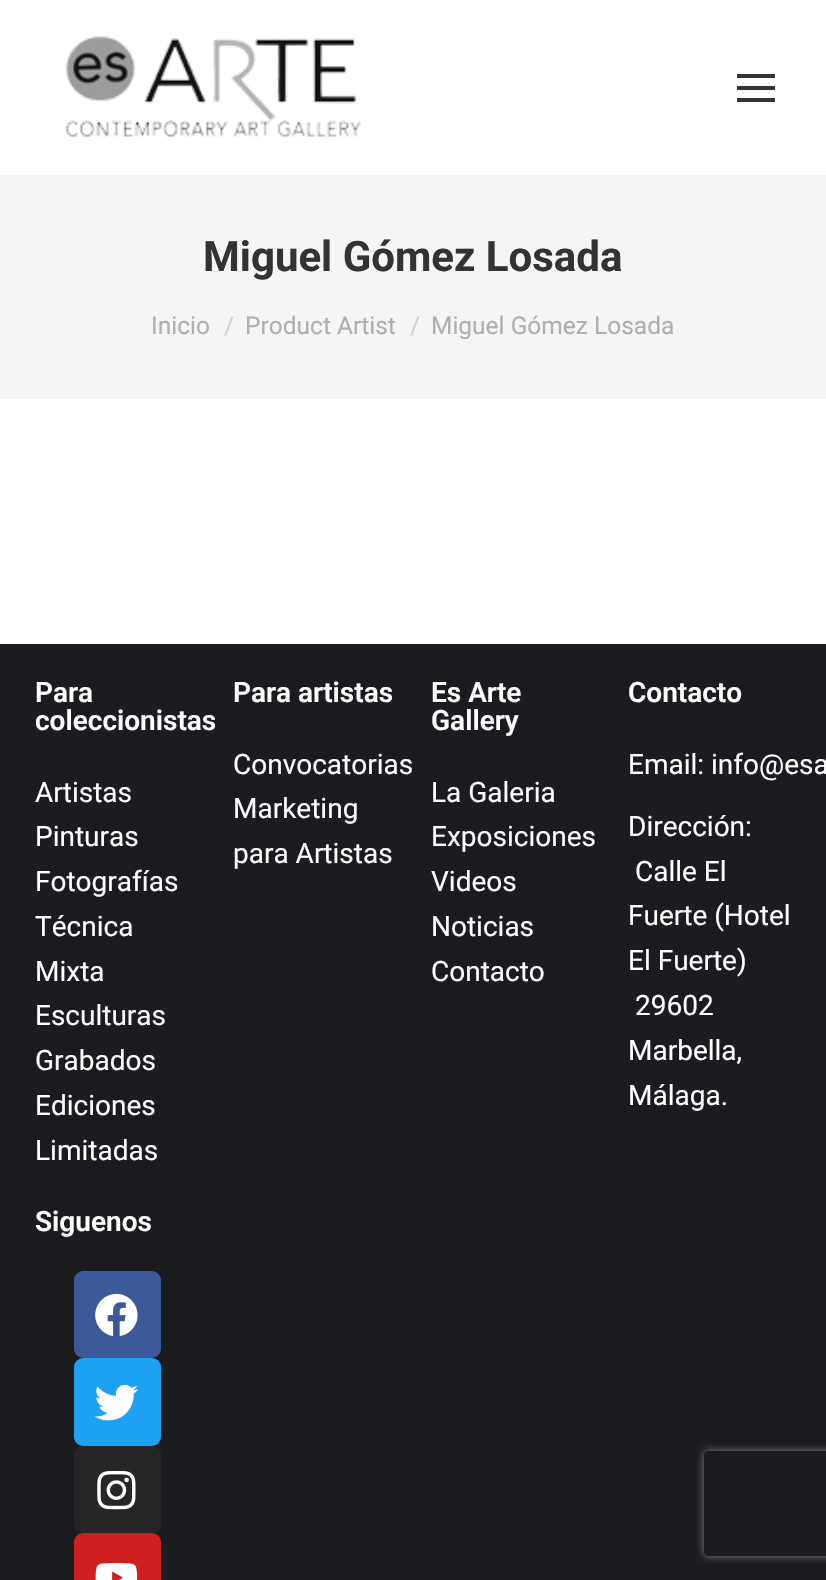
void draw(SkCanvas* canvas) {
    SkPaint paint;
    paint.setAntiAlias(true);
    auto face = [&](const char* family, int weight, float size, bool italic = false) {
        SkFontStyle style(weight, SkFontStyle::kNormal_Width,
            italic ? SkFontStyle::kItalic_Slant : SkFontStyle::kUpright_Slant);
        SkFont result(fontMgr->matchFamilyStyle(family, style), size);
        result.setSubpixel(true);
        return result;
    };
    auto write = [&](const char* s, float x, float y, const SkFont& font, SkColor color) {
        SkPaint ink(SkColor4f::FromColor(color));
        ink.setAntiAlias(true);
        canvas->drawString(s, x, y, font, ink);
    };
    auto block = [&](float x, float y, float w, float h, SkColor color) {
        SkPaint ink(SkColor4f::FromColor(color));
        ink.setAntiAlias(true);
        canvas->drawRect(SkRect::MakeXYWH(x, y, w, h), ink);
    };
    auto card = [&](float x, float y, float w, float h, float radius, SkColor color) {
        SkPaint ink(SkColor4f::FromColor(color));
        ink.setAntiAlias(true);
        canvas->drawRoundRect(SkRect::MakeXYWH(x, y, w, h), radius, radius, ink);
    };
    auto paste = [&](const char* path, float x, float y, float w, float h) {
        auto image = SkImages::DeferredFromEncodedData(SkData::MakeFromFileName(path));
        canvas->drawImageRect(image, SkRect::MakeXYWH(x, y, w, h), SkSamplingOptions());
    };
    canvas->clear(SK_ColorWHITE);
    paste("pic1.png", 64, 35, 297, 103);
    block(737, 74, 38, 4, SkColorSetRGB(51, 51, 51));
    block(737, 86, 38, 4, SkColorSetRGB(51, 51, 51));
    block(737, 98, 38, 4, SkColorSetRGB(51, 51, 51));
    block(0, 175, 826, 224, SkColorSetRGB(245, 245, 245));
    auto kFont1 = face("Roboto", 700, 42);
    write("Miguel Gómez Losada", 203, 271, kFont1, SkColorSetRGB(51, 51, 51));
    auto kFont2 = face("Roboto", 400, 24.5f);
    write("Inicio", 151, 334, kFont2, SkColorSetRGB(173, 175, 179));
    write("/", 224, 334, kFont2, SkColorSetRGB(209, 210, 212));
    write("Product Artist", 245, 334, kFont2, SkColorSetRGB(173, 175, 179));
    write("/", 410, 334, kFont2, SkColorSetRGB(209, 210, 212));
    write("Miguel Gómez Losada", 431, 334, kFont2, SkColorSetRGB(173, 175, 179));
    block(0, 644, 826, 936, SkColorSetRGB(26, 28, 32));
    auto kFont3 = face("Roboto", 600, 28);
    write("Para", 35, 702, kFont3, SK_ColorWHITE);
    write("coleccionistas", 35, 730, kFont3, SK_ColorWHITE);
    auto kFont4 = face("Roboto", 400, 28);
    write("Artistas", 35, 802, kFont4, SK_ColorWHITE);
    write("Pinturas", 35, 846, kFont4, SK_ColorWHITE);
    write("Fotografías", 35, 891, kFont4, SK_ColorWHITE);
    write("Técnica", 35, 936, kFont4, SK_ColorWHITE);
    write("Mixta", 35, 981, kFont4, SK_ColorWHITE);
    write("Esculturas", 35, 1025, kFont4, SK_ColorWHITE);
    write("Grabados", 35, 1070, kFont4, SK_ColorWHITE);
    write("Ediciones", 35, 1115, kFont4, SK_ColorWHITE);
    write("Limitadas", 35, 1160, kFont4, SK_ColorWHITE);
    write("Para artistas", 233, 702, kFont3, SK_ColorWHITE);
    write("Convocatorias", 233, 774, kFont4, SK_ColorWHITE);
    write("Marketing", 233, 818, kFont4, SK_ColorWHITE);
    write("para Artistas", 233, 863, kFont4, SK_ColorWHITE);
    write("Es Arte", 431, 702, kFont3, SK_ColorWHITE);
    write("Gallery", 431, 730, kFont3, SK_ColorWHITE);
    write("La Galeria", 431, 802, kFont4, SK_ColorWHITE);
    write("Exposiciones", 431, 846, kFont4, SK_ColorWHITE);
    write("Videos", 431, 891, kFont4, SK_ColorWHITE);
    write("Noticias", 431, 936, kFont4, SK_ColorWHITE);
    write("Contacto", 431, 981, kFont4, SK_ColorWHITE);
    write("Contacto", 628, 702, kFont3, SK_ColorWHITE);
    write("Email: info@esa", 628, 774, kFont4, SK_ColorWHITE);
    write("Dirección:", 628, 836, kFont4, SK_ColorWHITE);
    write("Calle El", 635, 881, kFont4, SK_ColorWHITE);
    write("Fuerte (Hotel", 628, 925, kFont4, SK_ColorWHITE);
    write("El Fuerte)", 628, 970, kFont4, SK_ColorWHITE);
    write("29602", 635, 1015, kFont4, SK_ColorWHITE);
    write("Marbella,", 628, 1060, kFont4, SK_ColorWHITE);
    write("Málaga.", 628, 1105, kFont4, SK_ColorWHITE);
    write("Siguenos", 35, 1231, kFont3, SK_ColorWHITE);
    card(74, 1271, 87, 87, 9, SkColorSetRGB(59, 89, 152));
    paste("pic2.png", 95, 1293, 43, 43);
    card(74, 1358, 87, 88, 9, SkColorSetRGB(29, 161, 242));
    paste("pic3.png", 95, 1384, 43, 37);
    card(74, 1446, 87, 87, 9, SkColorSetRGB(38, 38, 38));
    paste("pic4.png", 97, 1471, 39, 39);
    card(74, 1533, 87, 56, 9, SkColorSetRGB(205, 32, 31));
    paste("pic5.png", 95, 1563, 43, 17);
    canvas->save();
    canvas->clipPath(SkPathBuilder(SkPathFillType::kEvenOdd).moveTo(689, 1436).lineTo(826, 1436).lineTo(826, 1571).lineTo(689, 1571).close().moveTo(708, 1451).lineTo(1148, 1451).cubicTo(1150, 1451, 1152, 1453, 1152, 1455).lineTo(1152, 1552).cubicTo(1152, 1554, 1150, 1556, 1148, 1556).lineTo(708, 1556).cubicTo(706, 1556, 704, 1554, 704, 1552).lineTo(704, 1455).cubicTo(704, 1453, 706, 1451, 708, 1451).close().detach(), true);
    paint.setColor(SkColorSetRGB(128, 128, 128));
    paint.setMaskFilter(SkMaskFilter::MakeBlur(kNormal_SkBlurStyle, 4.5f));
    canvas->drawRoundRect(SkRect::MakeXYWH(704, 1451, 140, 105), 4, 4, paint);
    paint.setMaskFilter(nullptr);
    canvas->restore();
}
